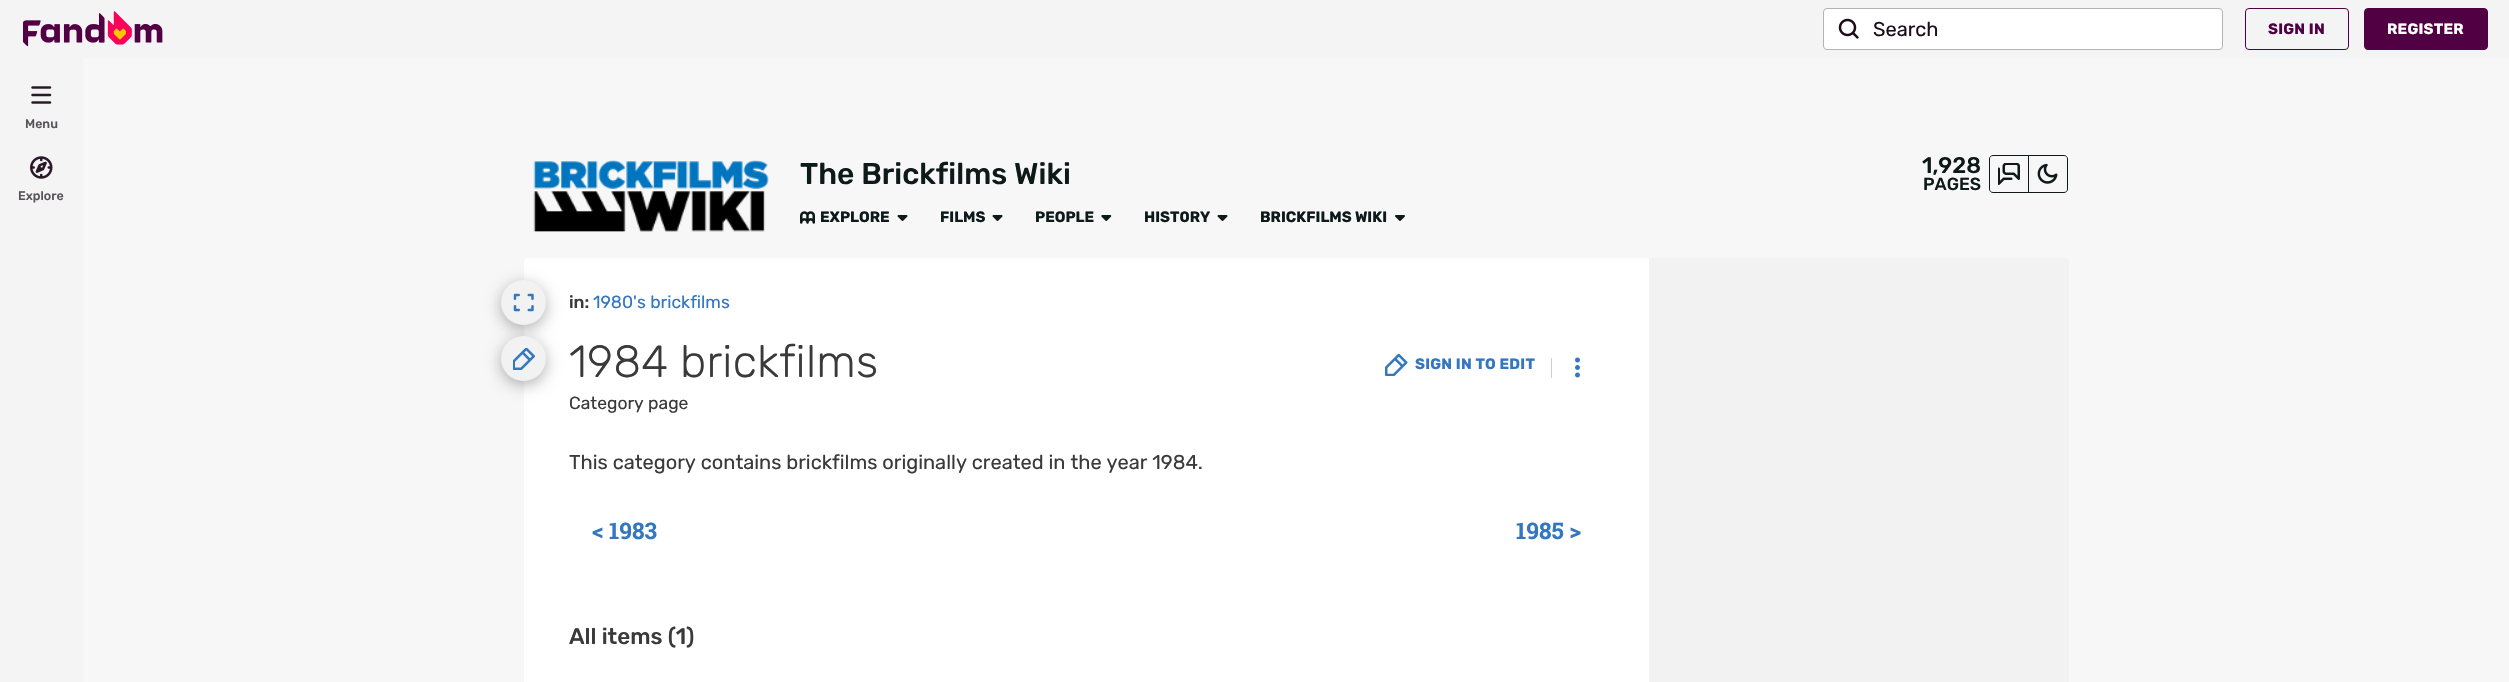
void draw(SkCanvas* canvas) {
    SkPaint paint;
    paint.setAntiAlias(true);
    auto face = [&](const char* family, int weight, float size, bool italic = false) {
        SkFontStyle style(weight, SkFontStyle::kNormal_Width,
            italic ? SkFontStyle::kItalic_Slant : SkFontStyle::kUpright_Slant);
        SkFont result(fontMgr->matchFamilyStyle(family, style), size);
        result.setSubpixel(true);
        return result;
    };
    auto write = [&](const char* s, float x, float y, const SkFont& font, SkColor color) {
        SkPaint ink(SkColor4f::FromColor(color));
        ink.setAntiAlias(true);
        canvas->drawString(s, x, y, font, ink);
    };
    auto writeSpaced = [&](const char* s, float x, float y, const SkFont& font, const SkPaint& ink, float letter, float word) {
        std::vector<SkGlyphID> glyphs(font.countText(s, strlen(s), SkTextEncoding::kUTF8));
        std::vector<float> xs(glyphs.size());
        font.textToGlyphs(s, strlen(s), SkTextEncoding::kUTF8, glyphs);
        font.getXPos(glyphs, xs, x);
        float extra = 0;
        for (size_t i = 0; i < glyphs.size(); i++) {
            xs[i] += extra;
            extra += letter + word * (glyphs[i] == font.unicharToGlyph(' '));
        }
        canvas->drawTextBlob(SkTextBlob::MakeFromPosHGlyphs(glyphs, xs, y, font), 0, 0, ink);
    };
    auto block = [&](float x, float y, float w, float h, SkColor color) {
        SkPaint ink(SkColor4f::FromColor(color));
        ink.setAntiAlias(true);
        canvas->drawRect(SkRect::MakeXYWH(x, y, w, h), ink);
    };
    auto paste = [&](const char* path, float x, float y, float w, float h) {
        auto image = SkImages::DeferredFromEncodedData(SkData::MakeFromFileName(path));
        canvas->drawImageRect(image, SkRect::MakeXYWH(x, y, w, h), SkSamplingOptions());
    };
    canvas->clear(SkColorSetRGB(247, 247, 247));
    block(0, 0, 2509, 58, SkColorSetRGB(244, 244, 244));
    paste("pic1.png", 23, 11, 140, 36);
    paint.setColor(SK_ColorWHITE);
    canvas->drawRoundRect(SkRect::MakeXYWH(1823.5f, 8.5f, 399, 41), 3.5f, 3.5f, paint);
    paint.setStyle(SkPaint::kStroke_Style);
    paint.setStrokeWidth(1);
    paint.setColor(SkColorSetRGB(179, 179, 179));
    canvas->drawRoundRect(SkRect::MakeXYWH(1823.5f, 8.5f, 399, 41), 3.5f, 3.5f, paint);
    paste("pic2.png", 1838, 18, 21, 21);
    auto kFont1 = face("Rubik", 400, 20);
    write("Search", 1873, 36, kFont1, SkColorSetRGB(30, 12, 27));
    paint.setColor(SkColorSetRGB(82, 0, 68));
    canvas->drawRoundRect(SkRect::MakeXYWH(2245.5f, 8.5f, 103, 41), 3.5f, 3.5f, paint);
    auto kFont2 = face("Rubik", 700, 15);
    paint.setStyle(SkPaint::kFill_Style);
    writeSpaced("SIGN IN", 2268, 34, kFont2, paint, 0.25f, 0);
    canvas->drawRoundRect(SkRect::MakeXYWH(2364.5f, 8.5f, 123, 41), 3.5f, 3.5f, paint);
    paint.setStyle(SkPaint::kStroke_Style);
    canvas->drawRoundRect(SkRect::MakeXYWH(2364.5f, 8.5f, 123, 41), 3.5f, 3.5f, paint);
    paint.setStyle(SkPaint::kFill_Style);
    paint.setColor(SK_ColorWHITE);
    writeSpaced("REGISTER", 2387, 34, kFont2, paint, 0.25f, 0);
    block(0, 58, 83, 624, SkColorSetRGB(244, 244, 244));
    paste("pic3.png", 31, 86, 21, 18);
    auto kFont3 = face("Rubik", 500, 12.5f);
    write("Menu", 25, 128, kFont3, SkColorSetRGB(89, 83, 88));
    paste("pic4.png", 30, 156, 23, 23);
    write("Explore", 18, 200, kFont3, SkColorSetRGB(89, 83, 88));
    paste("pic5.png", 533, 160, 236, 72);
    auto kFont4 = face("Rubik", 500, 30);
    write("The Brickfilms Wiki", 800, 184, kFont4, SkColorSetRGB(14, 25, 26));
    auto kFont5 = face("Rubik", 500, 22.5f);
    write("1,928", 1922, 173, kFont5, SkColorSetRGB(14, 25, 26));
    auto kFont6 = face("Rubik", 500, 17.5f);
    write("PAGES", 1923, 190, kFont6, SkColorSetRGB(14, 25, 26));
    paint.setStyle(SkPaint::kStroke_Style);
    paint.setColor(SkColorSetRGB(14, 25, 26));
    canvas->drawPath(SkPathBuilder().moveTo(1993, 155.5f).lineTo(2028.5f, 155.5f).lineTo(2028.5f, 192.5f).lineTo(1993, 192.5f).cubicTo(1991, 192.5f, 1989.5f, 191, 1989.5f, 189).lineTo(1989.5f, 159).cubicTo(1989.5f, 157, 1991, 155.5f, 1993, 155.5f).close().detach(), paint);
    paste("pic6.png", 1998, 163, 22, 22);
    canvas->drawPath(SkPathBuilder().moveTo(2028.5f, 155.5f).lineTo(2064, 155.5f).cubicTo(2066, 155.5f, 2067.5f, 157, 2067.5f, 159).lineTo(2067.5f, 189).cubicTo(2067.5f, 191, 2066, 192.5f, 2064, 192.5f).lineTo(2028.5f, 192.5f).close().detach(), paint);
    paste("pic7.png", 2037, 163, 21, 21);
    paste("pic8.png", 800, 211, 15, 13);
    write("EXPLORE", 820, 222, kFont2, SkColorSetRGB(14, 25, 26));
    paste("pic9.png", 897, 215, 11, 6);
    write("FILMS", 940, 222, kFont2, SkColorSetRGB(14, 25, 26));
    paste("pic9.png", 992, 215, 11, 6);
    write("PEOPLE", 1035, 222, kFont2, SkColorSetRGB(14, 25, 26));
    paste("pic10.png", 1101, 215, 11, 6);
    write("HIST0RY", 1144, 222, kFont2, SkColorSetRGB(14, 25, 26));
    paste("pic9.png", 1217, 215, 11, 6);
    write("BRICKFILMS WIKI", 1260, 222, kFont2, SkColorSetRGB(14, 25, 26));
    paste("pic11.png", 1395, 215, 10, 6);
    paint.setStyle(SkPaint::kFill_Style);
    paint.setColor(SK_ColorWHITE);
    canvas->drawPath(SkPathBuilder().moveTo(528, 258).lineTo(1649, 258).lineTo(1649, 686).lineTo(528, 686).cubicTo(526, 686, 524, 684, 524, 682).lineTo(524, 262).cubicTo(524, 260, 526, 258, 528, 258).close().detach(), paint);
    paint.setColor(SkColorSetARGB(77, 0, 0, 0));
    paint.setMaskFilter(SkMaskFilter::MakeBlur(kNormal_SkBlurStyle, 7.5f));
    canvas->drawRoundRect(SkRect::MakeXYWH(501, 284, 45, 45), 22.5f, 22.5f, paint);
    paint.setMaskFilter(nullptr);
    paint.setColor(SkColorSetRGB(242, 242, 242));
    canvas->drawCircle(523.5f, 302.5f, 22.5f, paint);
    paste("pic12.png", 513, 293, 21, 19);
    paint.setColor(SkColorSetARGB(77, 0, 0, 0));
    paint.setMaskFilter(SkMaskFilter::MakeBlur(kNormal_SkBlurStyle, 7.5f));
    canvas->drawRoundRect(SkRect::MakeXYWH(501, 340, 45, 45), 22.5f, 22.5f, paint);
    paint.setMaskFilter(nullptr);
    paint.setColor(SkColorSetRGB(242, 242, 242));
    canvas->drawCircle(523.5f, 358.5f, 22.5f, paint);
    paste("pic13.png", 513, 348, 22, 22);
    write("in:", 569, 308, kFont6, SkColorSetRGB(58, 58, 58));
    auto kFont7 = face("Rubik", 400, 17.5f);
    write("1980's brickfilms", 593, 308, kFont7, SkColorSetRGB(50, 119, 191));
    auto kFont8 = face("Rubik", 300, 45);
    paint.setColor(SkColorSetRGB(58, 58, 58));
    writeSpaced("1984 brickfilms", 569, 377, kFont8, paint, 0.25f, 0);
    write("Category page", 569, 409, kFont7, SkColorSetRGB(58, 58, 58));
    paste("pic14.png", 1385, 354, 23, 22);
    paint.setColor(SkColorSetRGB(50, 119, 191));
    writeSpaced("SIGN IN TO EDIT", 1415, 369, kFont2, paint, 0.25f, 0);
    block(1551, 358, 1, 20, SkColorSetRGB(206, 206, 206));
    paste("pic15.png", 1575, 357, 5, 21);
    write("This category contains brickfilms originally created in the year 1984.", 569, 469, kFont1, SkColorSetRGB(58, 58, 58));
    auto kFont9 = face("Roboto Slab", 700, 23);
    write("< 1983", 592, 539, kFont9, SkColorSetRGB(50, 119, 191));
    write("1985 >", 1516, 539, kFont9, SkColorSetRGB(50, 119, 191));
    write("All items (1)", 569, 644, kFont5, SkColorSetRGB(58, 58, 58));
    paint.setColor(SkColorSetRGB(242, 242, 242));
    canvas->drawPath(SkPathBuilder().moveTo(1649, 258).lineTo(2065, 258).cubicTo(2067, 258, 2069, 260, 2069, 262).lineTo(2069, 682).cubicTo(2069, 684, 2067, 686, 2065, 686).lineTo(1649, 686).close().detach(), paint);
}
